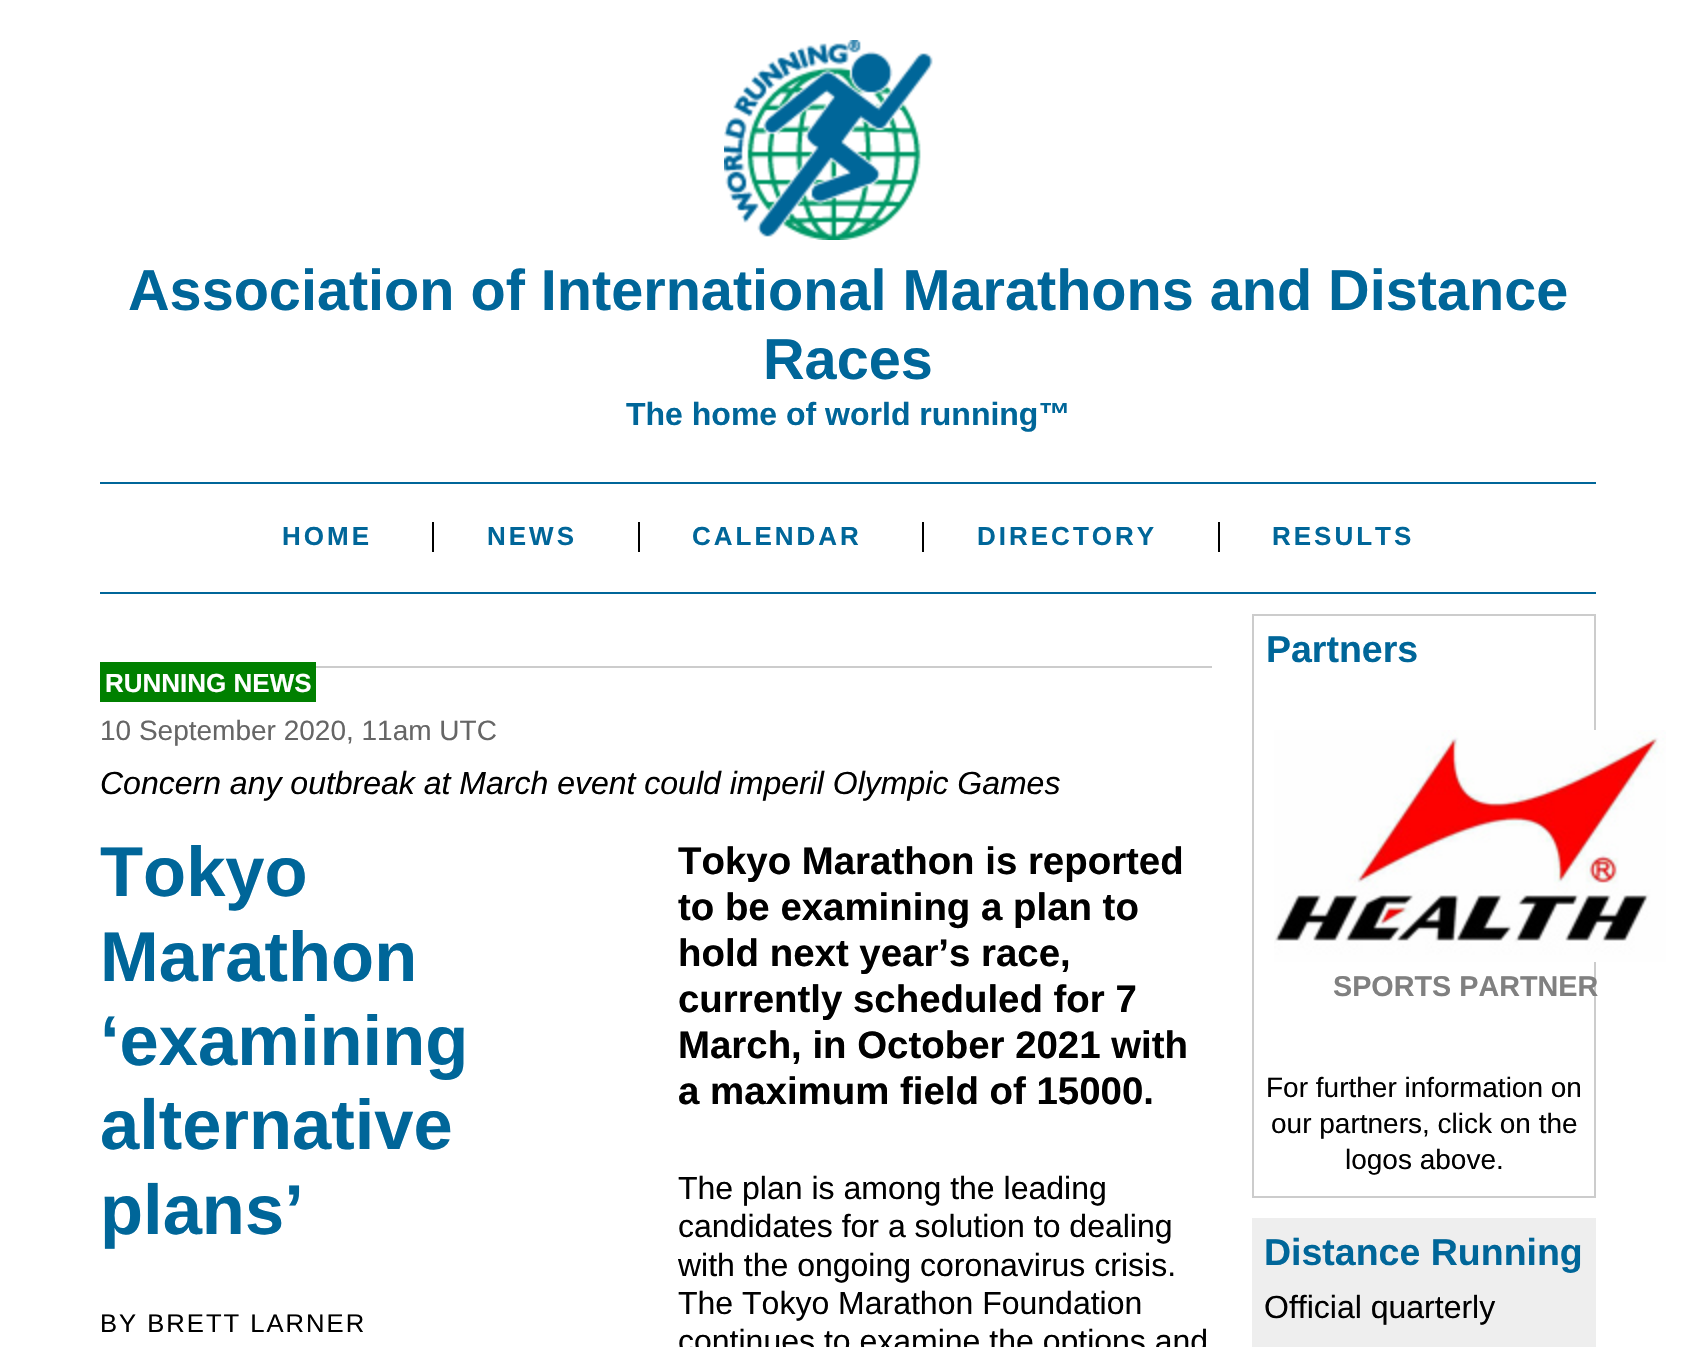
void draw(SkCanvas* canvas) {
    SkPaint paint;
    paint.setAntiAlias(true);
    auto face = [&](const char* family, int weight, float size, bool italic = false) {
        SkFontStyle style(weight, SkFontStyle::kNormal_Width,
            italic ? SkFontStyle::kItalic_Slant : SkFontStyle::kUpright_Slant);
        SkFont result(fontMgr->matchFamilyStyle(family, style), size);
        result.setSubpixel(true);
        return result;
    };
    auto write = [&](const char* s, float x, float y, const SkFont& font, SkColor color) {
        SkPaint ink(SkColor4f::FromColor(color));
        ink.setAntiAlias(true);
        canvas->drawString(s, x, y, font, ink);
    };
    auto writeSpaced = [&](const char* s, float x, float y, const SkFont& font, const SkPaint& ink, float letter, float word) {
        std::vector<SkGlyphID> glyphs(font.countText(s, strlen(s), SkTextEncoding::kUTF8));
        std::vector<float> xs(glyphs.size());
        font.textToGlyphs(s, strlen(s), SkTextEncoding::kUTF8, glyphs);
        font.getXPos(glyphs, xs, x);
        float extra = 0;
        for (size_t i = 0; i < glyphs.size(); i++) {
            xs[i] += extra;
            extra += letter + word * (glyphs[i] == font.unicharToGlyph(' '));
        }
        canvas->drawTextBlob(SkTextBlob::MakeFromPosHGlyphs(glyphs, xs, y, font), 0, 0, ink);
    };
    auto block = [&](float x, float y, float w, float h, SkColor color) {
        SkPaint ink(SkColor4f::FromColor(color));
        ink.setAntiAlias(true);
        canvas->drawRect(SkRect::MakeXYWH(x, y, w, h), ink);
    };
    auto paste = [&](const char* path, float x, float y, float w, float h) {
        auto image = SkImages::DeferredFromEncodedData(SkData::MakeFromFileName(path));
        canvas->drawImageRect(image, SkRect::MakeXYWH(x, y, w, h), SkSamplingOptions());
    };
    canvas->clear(SK_ColorWHITE);
    paste("pic1.png", 724, 40, 209, 200);
    block(100, 482, 1496, 2, SkColorSetRGB(0, 102, 153));
    auto kFont1 = face("Liberation Sans", 700, 57.6f);
    write("Association of International Marathons and Distance", 128, 310, kFont1, SkColorSetRGB(0, 102, 153));
    write("Races", 763, 379, kFont1, SkColorSetRGB(0, 102, 153));
    auto kFont2 = face("Liberation Sans", 700, 32);
    write("The home of world running™", 626, 425, kFont2, SkColorSetRGB(0, 102, 153));
    block(100, 592, 1496, 2, SkColorSetRGB(0, 102, 153));
    auto kFont3 = face("Liberation Sans", 700, 26);
    paint.setColor(SkColorSetRGB(0, 102, 153));
    writeSpaced("HOME", 282, 545, kFont3, paint, 3, 0);
    writeSpaced("NEWS", 487, 545, kFont3, paint, 3, 0);
    block(432, 522, 2, 30, SK_ColorBLACK);
    writeSpaced("CALENDAR", 692, 545, kFont3, paint, 3, 0);
    block(638, 522, 2, 30, SK_ColorBLACK);
    writeSpaced("DIRECTORY", 977, 545, kFont3, paint, 3, 0);
    block(922, 522, 2, 30, SK_ColorBLACK);
    writeSpaced("RESULTS", 1272, 545, kFont3, paint, 3, 0);
    block(1218, 522, 2, 30, SK_ColorBLACK);
    block(316, 666, 896, 2, SkColorSetRGB(204, 204, 204));
    block(100, 662, 216, 40, SkColorSetRGB(0, 128, 0));
    write("RUNNING NEWS", 105, 692, kFont3, SK_ColorWHITE);
    auto kFont4 = face("Liberation Sans", 400, 28);
    write("10 September 2020, 11am UTC", 100, 740, kFont4, SkColorSetRGB(102, 102, 102));
    auto kFont5 = face("Liberation Sans", 400, 32, true);
    write("Concern any outbreak at March event could imperil Olympic Games", 100, 794, kFont5, SK_ColorBLACK);
    auto kFont6 = face("Liberation Sans", 700, 70.5f);
    write("Tokyo", 100, 896, kFont6, SkColorSetRGB(0, 102, 153));
    write("Marathon", 100, 981, kFont6, SkColorSetRGB(0, 102, 153));
    write("‘examining", 100, 1065, kFont6, SkColorSetRGB(0, 102, 153));
    write("alternative", 100, 1149, kFont6, SkColorSetRGB(0, 102, 153));
    write("plans’", 100, 1234, kFont6, SkColorSetRGB(0, 102, 153));
    auto kFont7 = face("Liberation Sans", 400, 25.6f);
    paint.setColor(SK_ColorBLACK);
    writeSpaced("BY BRETT LARNER", 100, 1332, kFont7, paint, 2, 0);
    auto kFont8 = face("Liberation Sans", 700, 38.4f);
    write("Tokyo Marathon is reported", 678, 874, kFont8, SK_ColorBLACK);
    write("to be examining a plan to", 678, 920, kFont8, SK_ColorBLACK);
    write("hold next year’s race,", 678, 966, kFont8, SK_ColorBLACK);
    write("currently scheduled for 7", 678, 1012, kFont8, SK_ColorBLACK);
    write("March, in October 2021 with", 678, 1058, kFont8, SK_ColorBLACK);
    write("a maximum field of 15000.", 678, 1104, kFont8, SK_ColorBLACK);
    auto kFont9 = face("Liberation Sans", 400, 32);
    write("The plan is among the leading", 678, 1199, kFont9, SK_ColorBLACK);
    write("candidates for a solution to dealing", 678, 1237, kFont9, SK_ColorBLACK);
    write("with the ongoing coronavirus crisis.", 678, 1276, kFont9, SK_ColorBLACK);
    write("The Tokyo Marathon Foundation", 678, 1314, kFont9, SK_ColorBLACK);
    write("continues to examine the options and", 678, 1352, kFont9, SK_ColorBLACK);
    paint.setStyle(SkPaint::kStroke_Style);
    paint.setStrokeWidth(2);
    paint.setColor(SkColorSetRGB(204, 204, 204));
    canvas->drawRect(SkRect::MakeXYWH(1253, 615, 342, 582), paint);
    auto kFont10 = face("Liberation Sans", 700, 37.5f);
    write("Partners", 1266, 662, kFont10, SkColorSetRGB(0, 102, 153));
    paste("pic2.png", 1274, 730, 392, 232);
    auto kFont11 = face("Liberation Sans", 700, 28.75f);
    write("SPORTS PARTNER", 1333, 996, kFont11, SkColorSetRGB(128, 128, 128));
    write("For further information on", 1266, 1097, kFont4, SK_ColorBLACK);
    write("our partners, click on the", 1271, 1133, kFont4, SK_ColorBLACK);
    write("logos above.", 1345, 1169, kFont4, SK_ColorBLACK);
    block(1252, 1218, 344, 129, SkColorSetRGB(238, 238, 238));
    write("Distance Running", 1264, 1265, kFont10, SkColorSetRGB(0, 102, 153));
    write("Official quarterly", 1264, 1318, kFont9, SK_ColorBLACK);
}
